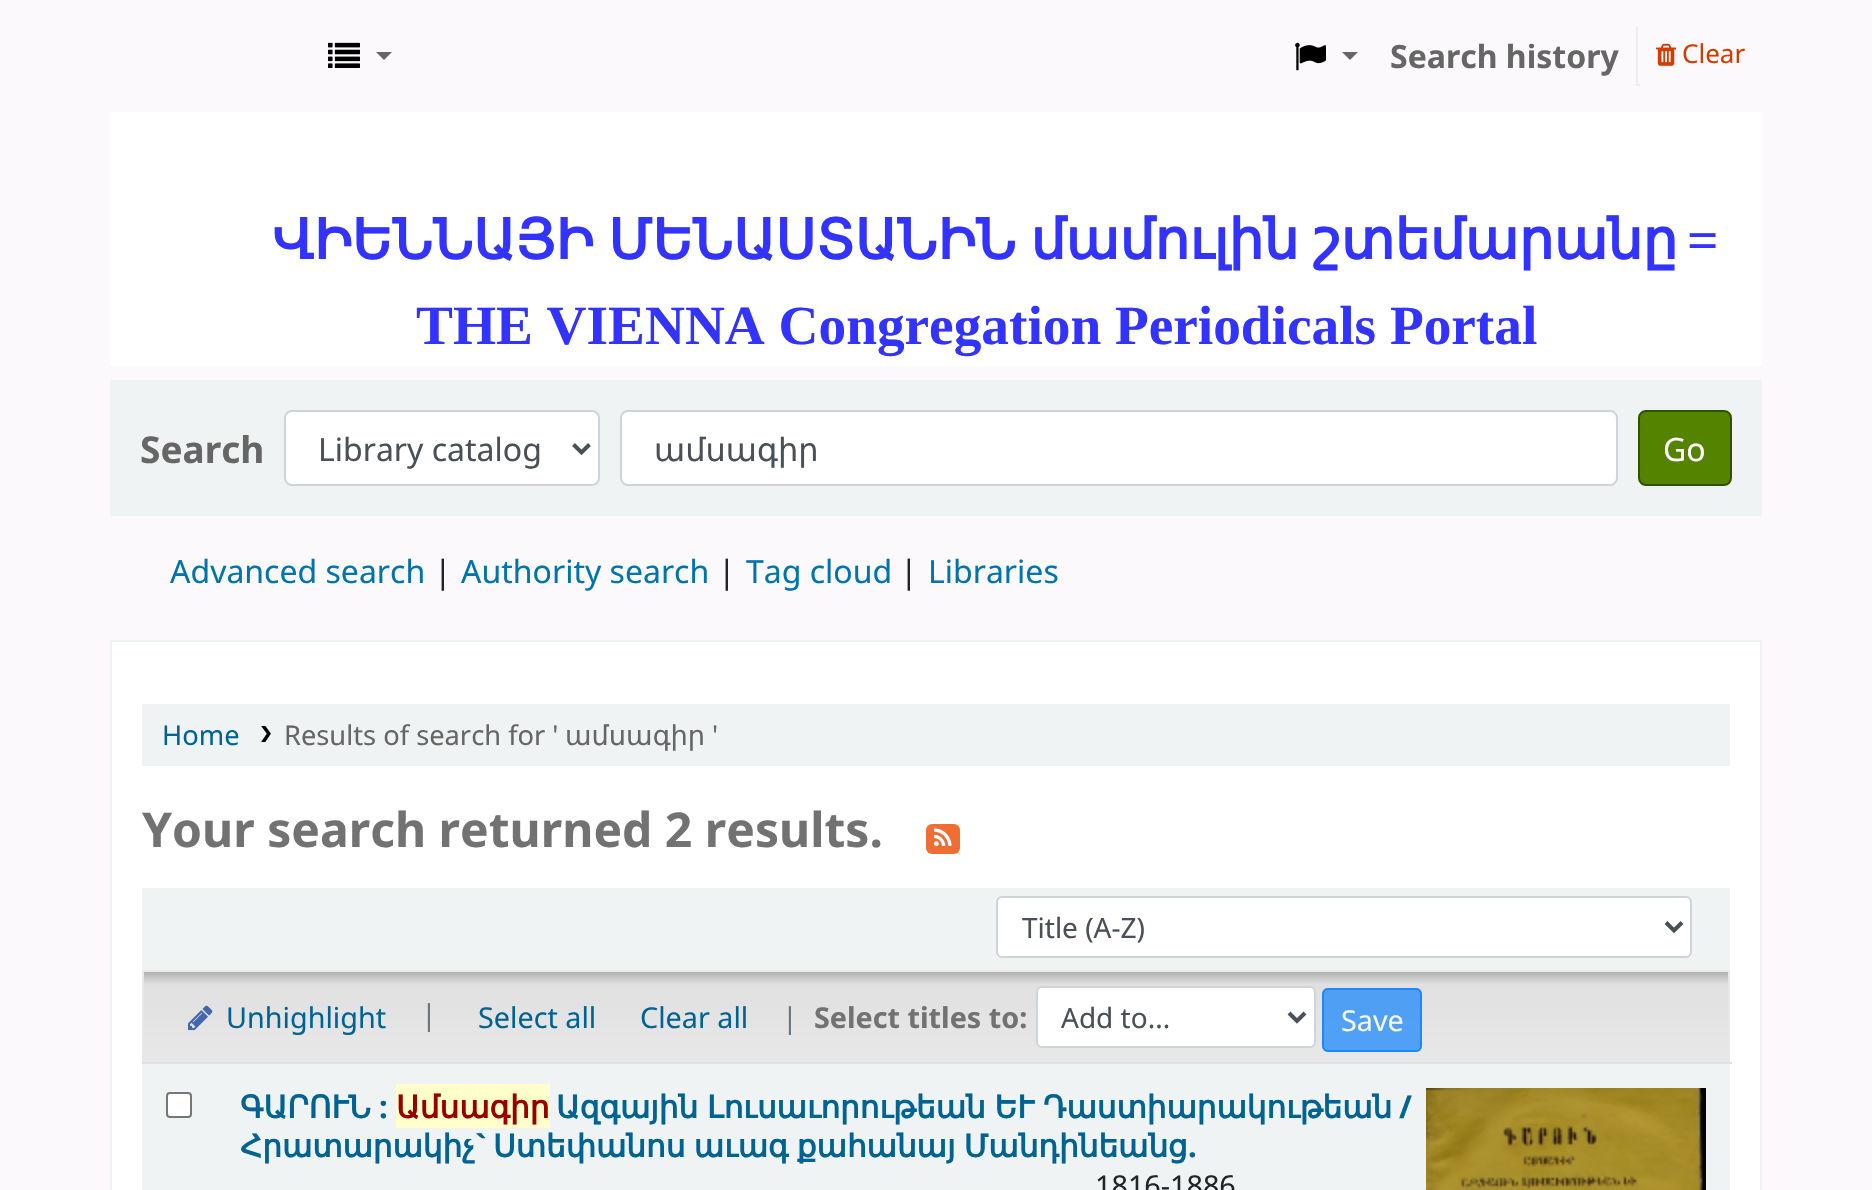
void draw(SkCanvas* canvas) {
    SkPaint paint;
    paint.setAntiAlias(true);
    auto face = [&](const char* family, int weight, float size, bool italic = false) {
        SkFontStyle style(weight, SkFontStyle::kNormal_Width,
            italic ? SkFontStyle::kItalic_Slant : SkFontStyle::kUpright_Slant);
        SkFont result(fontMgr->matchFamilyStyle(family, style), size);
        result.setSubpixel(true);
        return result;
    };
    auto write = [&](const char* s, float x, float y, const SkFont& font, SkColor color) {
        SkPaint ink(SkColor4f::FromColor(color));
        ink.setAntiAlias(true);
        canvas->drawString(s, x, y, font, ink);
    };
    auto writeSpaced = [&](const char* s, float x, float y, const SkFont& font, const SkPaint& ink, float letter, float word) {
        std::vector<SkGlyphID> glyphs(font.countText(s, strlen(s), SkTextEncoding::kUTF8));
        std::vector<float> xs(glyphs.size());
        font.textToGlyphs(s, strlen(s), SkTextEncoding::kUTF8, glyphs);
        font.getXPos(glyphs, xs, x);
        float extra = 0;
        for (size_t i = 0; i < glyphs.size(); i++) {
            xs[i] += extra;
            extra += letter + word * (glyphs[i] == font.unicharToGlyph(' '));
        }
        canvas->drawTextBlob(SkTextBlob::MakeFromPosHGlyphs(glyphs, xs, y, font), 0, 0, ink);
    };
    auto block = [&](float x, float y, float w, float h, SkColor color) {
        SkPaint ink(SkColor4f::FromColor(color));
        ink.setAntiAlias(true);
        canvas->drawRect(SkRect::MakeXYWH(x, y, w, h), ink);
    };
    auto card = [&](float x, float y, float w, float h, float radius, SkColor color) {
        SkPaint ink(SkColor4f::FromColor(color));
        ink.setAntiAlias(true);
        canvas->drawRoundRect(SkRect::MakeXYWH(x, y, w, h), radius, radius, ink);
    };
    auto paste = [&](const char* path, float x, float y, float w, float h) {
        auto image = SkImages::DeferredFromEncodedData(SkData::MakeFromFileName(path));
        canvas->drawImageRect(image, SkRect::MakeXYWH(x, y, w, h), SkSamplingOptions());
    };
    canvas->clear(SkColorSetRGB(252, 249, 252));
    paste("pic1.png", 328, 42, 32, 26);
    paint.setColor(SkColorSetRGB(102, 102, 102));
    canvas->drawPath(SkPathBuilder().moveTo(376, 52).lineTo(392, 52).lineTo(384, 60).close().detach(), paint);
    paste("pic2.png", 1295, 42, 31, 29);
    canvas->drawPath(SkPathBuilder().moveTo(1342, 52).lineTo(1358, 52).lineTo(1350, 60).close().detach(), paint);
    auto kFont1 = face("Noto Sans", 700, 32);
    write("Search history", 1390, 68, kFont1, SkColorSetRGB(102, 102, 102));
    block(1636, 84, 4, 2, SkColorSetRGB(238, 238, 238));
    block(1636, 26, 2, 60, SkColorSetRGB(238, 238, 238));
    paste("pic3.png", 1656, 43, 21, 23);
    auto kFont2 = face("Noto Sans", 400, 26);
    write("Clear", 1682, 63, kFont2, SkColorSetRGB(212, 60, 0));
    block(110, 112, 1652, 254, SK_ColorWHITE);
    auto kFont3 = face("DejaVu Sans", 700, 55.3f);
    paint.setColor(SkColorSetRGB(51, 51, 255));
    writeSpaced("ՎԻԵՆՆԱՅԻ ՄԵՆԱՍՏԱՆԻՆ մամուլին շտեմարանը", 272, 259, kFont3, paint, 0, -3);
    auto kFont4 = face("Liberation Serif", 700, 55.3f);
    write("=", 1687, 259, kFont4, SkColorSetRGB(51, 51, 255));
    write("THE VIENNA Congregation Periodicals Portal", 416, 344, kFont4, SkColorSetRGB(51, 51, 255));
    block(110, 380, 1652, 136, SkColorSetRGB(240, 243, 243));
    auto kFont5 = face("Noto Sans", 700, 37);
    write("Search", 140, 463, kFont5, SkColorSetRGB(102, 102, 102));
    paint.setColor(SK_ColorWHITE);
    canvas->drawRoundRect(SkRect::MakeXYWH(285, 411, 314, 74), 7, 7, paint);
    paint.setStyle(SkPaint::kStroke_Style);
    paint.setStrokeWidth(2);
    paint.setColor(SkColorSetRGB(206, 212, 218));
    canvas->drawRoundRect(SkRect::MakeXYWH(285, 411, 314, 74), 7, 7, paint);
    paint.setStrokeWidth(4);
    paint.setColor(SkColorSetRGB(73, 80, 87));
    canvas->drawPath(SkPathBuilder().moveTo(573.5f, 444.5f).lineTo(581.5f, 452.5f).lineTo(589.5f, 444.5f).detach(), paint);
    auto kFont6 = face("Noto Sans", 400, 32);
    write("Library catalog", 318, 461, kFont6, SkColorSetRGB(73, 80, 87));
    paint.setStyle(SkPaint::kFill_Style);
    paint.setColor(SK_ColorWHITE);
    canvas->drawRoundRect(SkRect::MakeXYWH(621, 411, 996, 74), 7, 7, paint);
    paint.setStyle(SkPaint::kStroke_Style);
    paint.setStrokeWidth(2);
    paint.setColor(SkColorSetRGB(206, 212, 218));
    canvas->drawRoundRect(SkRect::MakeXYWH(621, 411, 996, 74), 7, 7, paint);
    auto kFont7 = face("DejaVu Sans", 400, 32);
    write("ամսագիր", 654, 461, kFont7, SkColorSetRGB(73, 80, 87));
    paint.setStyle(SkPaint::kFill_Style);
    paint.setColor(SkColorSetRGB(84, 131, 0));
    canvas->drawRoundRect(SkRect::MakeXYWH(1639, 411, 92, 74), 7, 7, paint);
    paint.setStyle(SkPaint::kStroke_Style);
    paint.setColor(SkColorSetRGB(51, 80, 0));
    canvas->drawRoundRect(SkRect::MakeXYWH(1639, 411, 92, 74), 7, 7, paint);
    write("Go", 1663, 461, kFont6, SK_ColorWHITE);
    write("Advanced search", 170, 583, kFont6, SkColorSetRGB(0, 116, 173));
    write("|", 434, 583, kFont6, SkColorSetRGB(33, 37, 41));
    write("Authority search", 461, 583, kFont6, SkColorSetRGB(0, 116, 173));
    write("|", 718, 583, kFont6, SkColorSetRGB(33, 37, 41));
    write("Tag cloud", 746, 583, kFont6, SkColorSetRGB(0, 116, 173));
    write("|", 900, 583, kFont6, SkColorSetRGB(33, 37, 41));
    write("Libraries", 928, 583, kFont6, SkColorSetRGB(0, 116, 173));
    paint.setStyle(SkPaint::kFill_Style);
    paint.setColor(SK_ColorWHITE);
    canvas->drawRect(SkRect::MakeXYWH(111, 641, 1650, 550), paint);
    paint.setStyle(SkPaint::kStroke_Style);
    paint.setColor(SkColorSetRGB(240, 243, 243));
    canvas->drawRect(SkRect::MakeXYWH(111, 641, 1650, 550), paint);
    block(142, 704, 1588, 62, SkColorSetRGB(240, 243, 243));
    auto kFont8 = face("Noto Sans", 400, 27.25f);
    write("Home", 162, 745, kFont8, SkColorSetRGB(0, 99, 148));
    paste("pic4.png", 261, 726, 10, 16);
    write("Results of search for '", 284, 745, kFont8, SkColorSetRGB(102, 102, 102));
    auto kFont9 = face("DejaVu Sans", 400, 27.25f);
    write("ամսագիր", 565, 745, kFont9, SkColorSetRGB(102, 102, 102));
    write("'", 712, 745, kFont8, SkColorSetRGB(102, 102, 102));
    auto kFont10 = face("Noto Sans", 700, 48);
    write("Your search returned 2 results.", 142, 847, kFont10, SkColorSetRGB(114, 114, 114));
    card(926, 824, 34, 30, 6, SkColorSetRGB(240, 109, 52));
    paste("pic5.png", 934, 828, 18, 18);
    block(142, 888, 1588, 82, SkColorSetRGB(240, 243, 243));
    paint.setStyle(SkPaint::kFill_Style);
    paint.setColor(SK_ColorWHITE);
    canvas->drawRoundRect(SkRect::MakeXYWH(997, 897, 694, 60), 5, 5, paint);
    paint.setStyle(SkPaint::kStroke_Style);
    paint.setColor(SkColorSetRGB(206, 212, 218));
    canvas->drawRoundRect(SkRect::MakeXYWH(997, 897, 694, 60), 5, 5, paint);
    paint.setStrokeWidth(4);
    paint.setColor(SkColorSetRGB(73, 80, 87));
    canvas->drawPath(SkPathBuilder().moveTo(1666, 922.5f).lineTo(1674, 930.5f).lineTo(1682, 922.5f).detach(), paint);
    auto kFont11 = face("Noto Sans", 400, 28);
    write("Title (A-Z)", 1022, 938, kFont11, SkColorSetRGB(73, 80, 87));
    paint.setStyle(SkPaint::kFill_Style);
    {
        const SkColor colors[] = {SkColorSetRGB(178, 178, 178), SkColorSetRGB(224, 224, 224), SkColorSetRGB(232, 232, 232)};
        const float stops[] = {0, 0.14f, 1};
        const SkPoint ends[] = {{936, 882}, {936, 972}};
        paint.setShader(SkGradientShader::MakeLinear(ends, colors, stops, 3, SkTileMode::kClamp));
        paint.setAlpha(255);
    }
    canvas->drawRect(SkRect::MakeXYWH(142, 970, 1588, 2), paint);
    {
        const SkColor colors[] = {SkColorSetRGB(178, 178, 178), SkColorSetRGB(224, 224, 224), SkColorSetRGB(232, 232, 232)};
        const float stops[] = {0, 0.14f, 1};
        const SkPoint ends[] = {{936, 972}, {936, 1062}};
        paint.setShader(SkGradientShader::MakeLinear(ends, colors, stops, 3, SkTileMode::kClamp));
        paint.setAlpha(255);
    }
    canvas->drawRect(SkRect::MakeXYWH(144, 972, 1584, 90), paint);
    block(1728, 970, 2, 92, SkColorSetRGB(232, 232, 232));
    block(142, 970, 2, 92, SkColorSetRGB(232, 232, 232));
    paste("pic6.png", 188, 1005, 25, 26);
    auto kFont12 = face("Noto Sans", 400, 28.75f);
    write("Unhighlight", 226, 1028, kFont12, SkColorSetRGB(0, 99, 148));
    write("|", 421, 1025, kFont12, SkColorSetRGB(108, 117, 125));
    write("Select all", 478, 1028, kFont12, SkColorSetRGB(0, 99, 148));
    write("Clear all", 640, 1028, kFont12, SkColorSetRGB(0, 99, 148));
    write("|", 782, 1028, kFont12, SkColorSetRGB(108, 117, 125));
    auto kFont13 = face("Noto Sans", 700, 28.75f);
    write("Select titles to:", 814, 1028, kFont13, SkColorSetRGB(114, 114, 114));
    paint.setShader(nullptr);
    paint.setColor(SK_ColorWHITE);
    canvas->drawRoundRect(SkRect::MakeXYWH(1037, 987, 278, 60), 5, 5, paint);
    paint.setStyle(SkPaint::kStroke_Style);
    paint.setStrokeWidth(2);
    paint.setColor(SkColorSetRGB(206, 212, 218));
    canvas->drawRoundRect(SkRect::MakeXYWH(1037, 987, 278, 60), 5, 5, paint);
    paint.setStrokeWidth(4);
    paint.setColor(SkColorSetRGB(73, 80, 87));
    canvas->drawPath(SkPathBuilder().moveTo(1289, 1013).lineTo(1297, 1021).lineTo(1305, 1013).detach(), paint);
    write("Add to...", 1061, 1028, kFont11, SkColorSetRGB(73, 80, 87));
    card(1322, 988, 100, 64, 6, SkColorSetARGB(166, 0, 123, 255));
    paint.setStrokeWidth(2);
    paint.setColor(SkColorSetARGB(166, 0, 123, 255));
    canvas->drawRoundRect(SkRect::MakeXYWH(1323, 989, 98, 62), 5, 5, paint);
    write("Save", 1341, 1031, kFont12, SkColorSetRGB(246, 246, 246));
    block(142, 1064, 1588, 126, SkColorSetRGB(240, 243, 243));
    paint.setStyle(SkPaint::kFill_Style);
    paint.setColor(SK_ColorWHITE);
    canvas->drawRoundRect(SkRect::MakeXYWH(167, 1093, 24, 24), 3, 3, paint);
    paint.setStyle(SkPaint::kStroke_Style);
    paint.setColor(SkColorSetRGB(118, 118, 118));
    canvas->drawRoundRect(SkRect::MakeXYWH(167, 1093, 24, 24), 3, 3, paint);
    block(142, 1062, 1590, 2, SkColorSetRGB(222, 226, 230));
    auto kFont14 = face("DejaVu Sans", 700, 31.1f);
    write("ԳԱՐՈՒՆ", 240, 1118, kFont14, SkColorSetRGB(0, 99, 148));
    auto kFont15 = face("Noto Sans", 700, 31.1f);
    write(":", 379, 1118, kFont15, SkColorSetRGB(0, 99, 148));
    block(396, 1084, 154, 44, SkColorSetRGB(255, 255, 204));
    write("Ամսագիր", 396, 1118, kFont14, SkColorSetRGB(153, 0, 0));
    paint.setStyle(SkPaint::kFill_Style);
    paint.setColor(SkColorSetRGB(0, 99, 148));
    writeSpaced("Ազգային Լուսաւորութեան ԵՒ Դաստիարակութեան", 556, 1118, kFont14, paint, 0, -1);
    write("/", 1399, 1118, kFont15, SkColorSetRGB(0, 99, 148));
    write("Հրատարակիչ", 240, 1157, kFont14, SkColorSetRGB(0, 99, 148));
    write("`", 475, 1157, kFont15, SkColorSetRGB(0, 99, 148));
    writeSpaced("Ստեփանոս աւագ քահանայ Մանդինեանց", 493, 1157, kFont14, paint, 0, -1.5f);
    write(".", 1188, 1157, kFont15, SkColorSetRGB(0, 99, 148));
    write("1816-1886", 1095, 1196, kFont12, SkColorSetRGB(33, 37, 41));
    paste("pic7.png", 1426, 1088, 280, 102);
}
